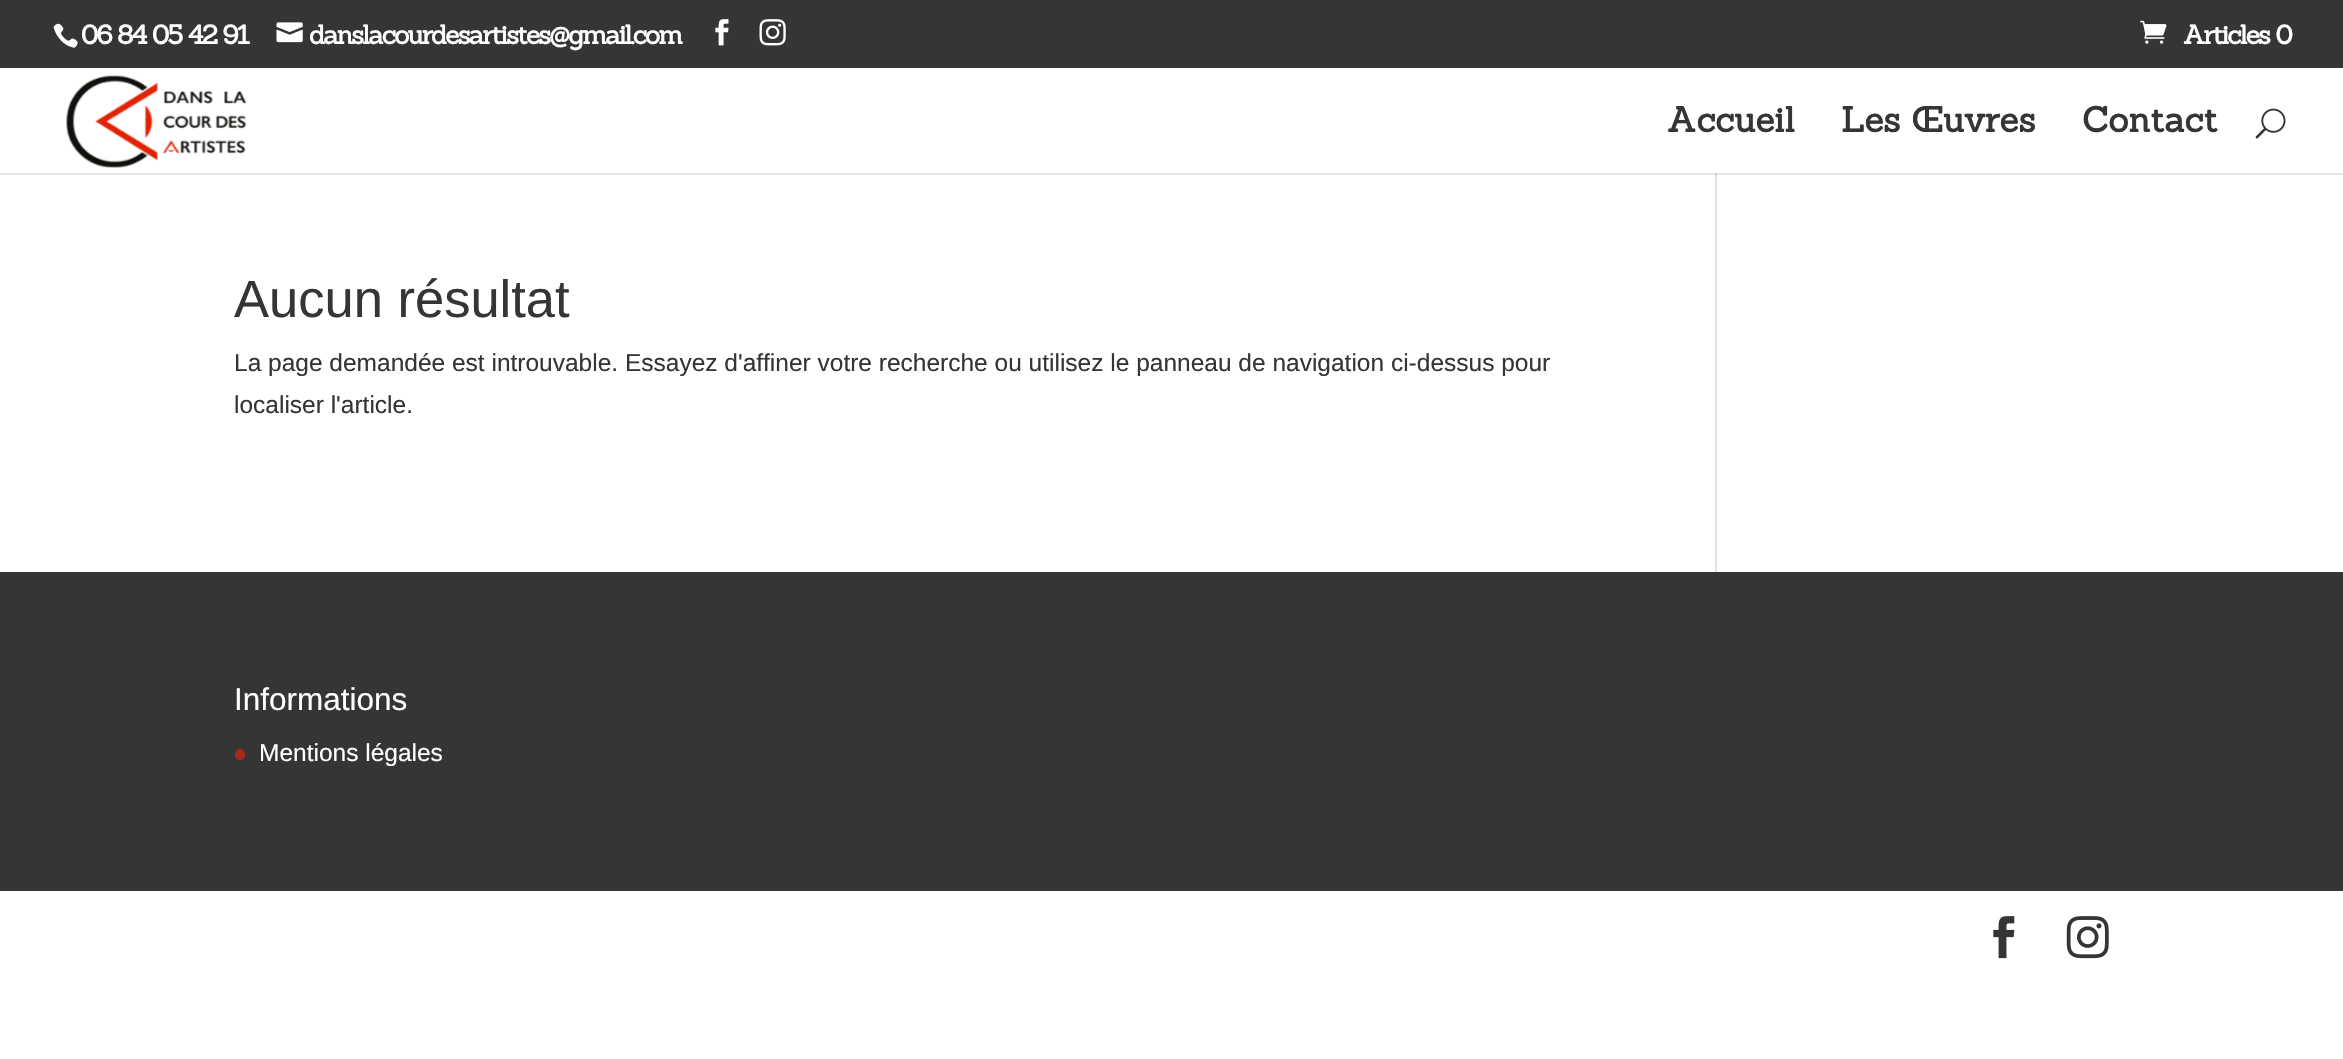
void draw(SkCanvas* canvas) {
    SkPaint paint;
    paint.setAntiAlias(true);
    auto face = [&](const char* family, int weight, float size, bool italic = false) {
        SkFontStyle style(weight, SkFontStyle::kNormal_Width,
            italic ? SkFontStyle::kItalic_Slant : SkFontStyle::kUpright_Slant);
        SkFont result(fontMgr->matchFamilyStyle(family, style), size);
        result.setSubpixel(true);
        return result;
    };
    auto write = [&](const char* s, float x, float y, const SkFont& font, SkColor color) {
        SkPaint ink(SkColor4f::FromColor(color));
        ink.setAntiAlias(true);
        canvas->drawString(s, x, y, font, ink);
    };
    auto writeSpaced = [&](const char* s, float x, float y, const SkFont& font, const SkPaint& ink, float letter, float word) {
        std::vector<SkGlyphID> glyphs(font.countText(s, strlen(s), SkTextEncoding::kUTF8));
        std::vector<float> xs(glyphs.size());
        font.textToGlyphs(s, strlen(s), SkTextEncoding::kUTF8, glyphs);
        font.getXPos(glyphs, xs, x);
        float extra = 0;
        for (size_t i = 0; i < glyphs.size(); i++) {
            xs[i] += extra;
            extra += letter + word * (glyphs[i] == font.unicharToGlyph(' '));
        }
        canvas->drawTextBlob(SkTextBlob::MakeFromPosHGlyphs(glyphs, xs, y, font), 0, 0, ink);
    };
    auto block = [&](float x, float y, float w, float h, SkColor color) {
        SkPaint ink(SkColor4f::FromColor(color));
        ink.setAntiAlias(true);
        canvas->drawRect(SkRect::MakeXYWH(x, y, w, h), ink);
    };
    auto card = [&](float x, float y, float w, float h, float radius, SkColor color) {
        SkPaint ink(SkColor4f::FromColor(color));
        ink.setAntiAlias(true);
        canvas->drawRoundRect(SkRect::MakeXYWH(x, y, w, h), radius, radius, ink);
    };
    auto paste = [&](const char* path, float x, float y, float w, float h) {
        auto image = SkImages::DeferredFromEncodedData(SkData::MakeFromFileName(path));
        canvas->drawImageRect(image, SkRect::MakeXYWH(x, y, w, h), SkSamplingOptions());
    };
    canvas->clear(SK_ColorWHITE);
    block(0, 173, 2343, 2, SkColorSetRGB(230, 230, 230));
    block(0, 0, 2343, 68, SkColorSetRGB(53, 53, 53));
    paste("pic1.png", 53, 23, 25, 25);
    auto kFont1 = face("Sanchez", 700, 26.25f);
    paint.setColor(SK_ColorWHITE);
    writeSpaced("06 84 05 42 91", 81, 44, kFont1, paint, -1.75f, 0);
    paste("pic2.png", 276, 22, 27, 21);
    writeSpaced("danslacourdesartistes@gmail.com", 309, 44, kFont1, paint, -1.75f, 0);
    paste("pic3.png", 715, 19, 14, 27);
    paste("pic4.png", 759, 19, 27, 27);
    paste("pic5.png", 2140, 20, 27, 24);
    writeSpaced("Articles 0", 2183, 44, kFont1, paint, -1.75f, 0);
    block(1715, 172, 2, 400, SkColorSetRGB(226, 226, 226));
    block(1715, 172, 2, 1, SK_ColorWHITE);
    paste("pic6.png", 66, 75, 181, 93);
    auto kFont2 = face("Sanchez", 700, 35);
    write("Accueil", 1667, 132, kFont2, SkColorSetRGB(53, 53, 53));
    write("Les Œuvres", 1841, 132, kFont2, SkColorSetRGB(53, 53, 53));
    write("Contact", 2082, 132, kFont2, SkColorSetRGB(53, 53, 53));
    paste("pic7.png", 2255, 108, 31, 31);
    auto kFont3 = face("Liberation Sans", 400, 52.5f);
    write("Aucun résultat", 234, 317, kFont3, SkColorSetRGB(53, 53, 53));
    auto kFont4 = face("Liberation Sans", 400, 24.5f);
    write("La page demandée est introuvable. Essayez d'affiner votre recherche ou utilisez le panneau de navigation ci-dessus pour", 234, 371, kFont4, SkColorSetRGB(53, 53, 53));
    write("localiser l'article.", 234, 413, kFont4, SkColorSetRGB(53, 53, 53));
    block(1715, 173, 2, 2, SkColorSetRGB(203, 203, 203));
    block(0, 572, 2343, 319, SkColorSetRGB(53, 53, 53));
    auto kFont5 = face("Liberation Sans", 400, 31.5f);
    write("Informations", 234, 710, kFont5, SK_ColorWHITE);
    card(235, 749, 10, 11, 5, SkColorSetRGB(168, 40, 28));
    write("Mentions légales", 259, 761, kFont4, SK_ColorWHITE);
    paste("pic8.png", 1993, 916, 22, 43);
    paste("pic9.png", 2066, 916, 43, 43);
}
